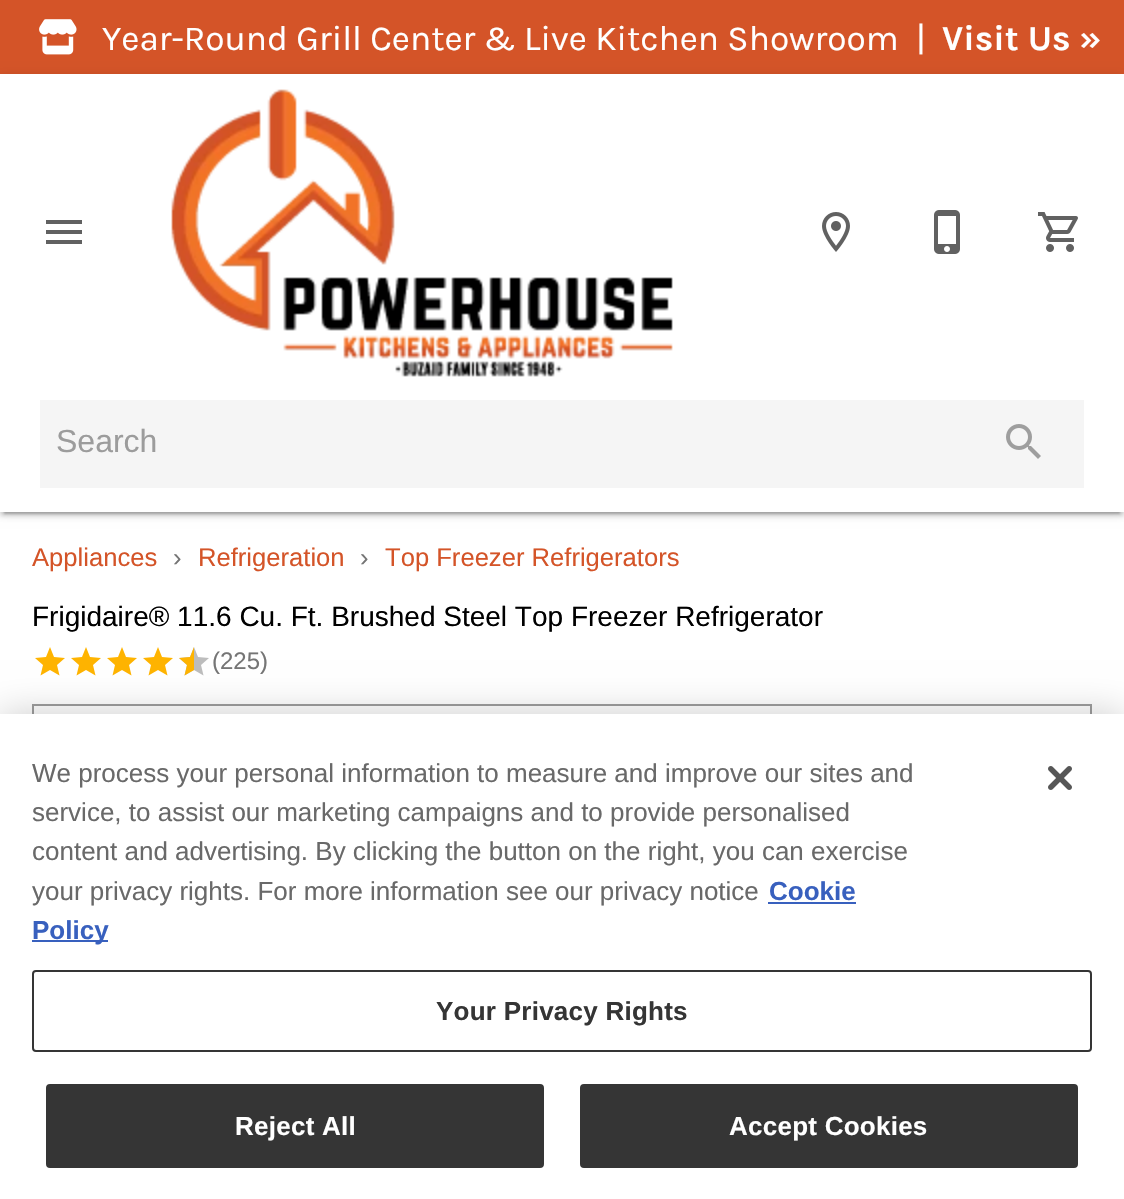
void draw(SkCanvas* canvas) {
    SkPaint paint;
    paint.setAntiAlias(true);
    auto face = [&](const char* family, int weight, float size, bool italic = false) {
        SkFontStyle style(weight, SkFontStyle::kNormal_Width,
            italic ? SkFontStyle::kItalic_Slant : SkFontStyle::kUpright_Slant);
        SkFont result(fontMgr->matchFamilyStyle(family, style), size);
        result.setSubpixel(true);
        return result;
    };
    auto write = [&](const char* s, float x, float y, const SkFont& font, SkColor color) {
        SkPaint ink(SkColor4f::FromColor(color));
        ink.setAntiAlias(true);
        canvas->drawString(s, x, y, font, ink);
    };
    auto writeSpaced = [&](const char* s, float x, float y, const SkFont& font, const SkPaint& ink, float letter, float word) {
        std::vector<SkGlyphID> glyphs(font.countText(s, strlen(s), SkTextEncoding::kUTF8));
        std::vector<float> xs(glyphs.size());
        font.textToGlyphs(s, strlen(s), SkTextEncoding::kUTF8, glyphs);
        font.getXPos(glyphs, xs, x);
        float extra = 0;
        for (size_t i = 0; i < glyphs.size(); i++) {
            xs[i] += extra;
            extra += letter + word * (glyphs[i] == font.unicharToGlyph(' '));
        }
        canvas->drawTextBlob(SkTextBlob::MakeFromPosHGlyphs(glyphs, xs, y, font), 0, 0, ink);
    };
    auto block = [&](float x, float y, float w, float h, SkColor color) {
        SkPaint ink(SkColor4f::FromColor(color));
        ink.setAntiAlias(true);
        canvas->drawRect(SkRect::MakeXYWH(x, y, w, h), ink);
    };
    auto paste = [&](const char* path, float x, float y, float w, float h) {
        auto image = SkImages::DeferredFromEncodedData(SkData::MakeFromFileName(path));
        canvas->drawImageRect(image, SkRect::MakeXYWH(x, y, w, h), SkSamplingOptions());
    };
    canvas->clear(SK_ColorWHITE);
    block(0, 0, 1124, 74, SkColorSetRGB(212, 84, 40));
    paste("pic1.png", 39, 19, 38, 36);
    auto kFont1 = face("Karla", 400, 35.2f);
    write("Year-Round Grill Center & Live Kitchen Showroom", 102, 50, kFont1, SK_ColorWHITE);
    write("|", 916, 50, kFont1, SK_ColorWHITE);
    auto kFont2 = face("Karla", 700, 35.2f);
    write("Visit Us »", 942, 50, kFont2, SK_ColorWHITE);
    paint.setColor(SkColorSetARGB(31, 0, 0, 0));
    paint.setMaskFilter(SkMaskFilter::MakeBlur(kNormal_SkBlurStyle, 5));
    canvas->drawRect(SkRect::MakeXYWH(0, 76, 1124, 438), paint);
    paint.setMaskFilter(nullptr);
    paint.setColor(SkColorSetARGB(36, 0, 0, 0));
    paint.setMaskFilter(SkMaskFilter::MakeBlur(kNormal_SkBlurStyle, 2));
    canvas->drawRect(SkRect::MakeXYWH(0, 78, 1124, 438), paint);
    paint.setMaskFilter(nullptr);
    paint.setColor(SkColorSetARGB(51, 0, 0, 0));
    paint.setMaskFilter(SkMaskFilter::MakeBlur(kNormal_SkBlurStyle, 1));
    canvas->drawRect(SkRect::MakeXYWH(4, 84, 1116, 430), paint);
    paint.setMaskFilter(nullptr);
    block(0, 74, 1124, 438, SK_ColorWHITE);
    paint.setColor(SkColorSetRGB(97, 97, 97));
    canvas->drawPath(SkPathBuilder().moveTo(46, 244).lineTo(82, 244).lineTo(82, 240).lineTo(46, 240).close().moveTo(46, 234).lineTo(82, 234).lineTo(82, 230).lineTo(46, 230).close().moveTo(46, 220).lineTo(46, 224).lineTo(82, 224).lineTo(82, 220).close().detach(), paint);
    paste("pic2.png", 171, 89, 502, 288);
    paste("pic3.png", 822, 212, 28, 40);
    paste("pic4.png", 934, 210, 26, 44);
    paste("pic5.png", 1038, 212, 40, 40);
    block(40, 400, 1044, 88, SkColorSetRGB(245, 245, 245));
    auto kFont3 = face("Liberation Sans", 400, 32);
    write("Search", 56, 452, kFont3, SkColorSetRGB(156, 156, 156));
    paste("pic6.png", 1006, 424, 35, 35);
    auto kFont4 = face("Liberation Sans", 400, 25.6f);
    write("Appliances", 32, 566, kFont4, SkColorSetRGB(212, 84, 40));
    write("›", 173, 566, kFont4, SkColorSetRGB(117, 117, 117));
    write("Refrigeration", 198, 566, kFont4, SkColorSetRGB(212, 84, 40));
    write("›", 360, 566, kFont4, SkColorSetRGB(117, 117, 117));
    write("Top Freezer Refrigerators", 385, 566, kFont4, SkColorSetRGB(212, 84, 40));
    auto kFont5 = face("Liberation Sans", 400, 28);
    write("Frigidaire® 11.6 Cu. Ft. Brushed Steel Top Freezer Refrigerator", 32, 626, kFont5, SK_ColorBLACK);
    paint.setColor(SkColorSetRGB(255, 180, 0));
    canvas->drawPath(SkPathBuilder().moveTo(50, 670).lineTo(59.5f, 675.5f).lineTo(57, 665).lineTo(65, 658).lineTo(54, 657).lineTo(50, 647).lineTo(46, 657).lineTo(35, 658).lineTo(43, 665).lineTo(40.5f, 675.5f).close().detach(), paint);
    canvas->drawPath(SkPathBuilder().moveTo(86, 670).lineTo(95.5f, 675.5f).lineTo(93, 665).lineTo(101, 658).lineTo(90, 657).lineTo(86, 647).lineTo(82, 657).lineTo(71, 658).lineTo(79, 665).lineTo(76.5f, 675.5f).close().detach(), paint);
    canvas->drawPath(SkPathBuilder().moveTo(122, 670).lineTo(131.5f, 675.5f).lineTo(129, 665).lineTo(137, 658).lineTo(126, 657).lineTo(122, 647).lineTo(118, 657).lineTo(107, 658).lineTo(115, 665).lineTo(112.5f, 675.5f).close().detach(), paint);
    canvas->drawPath(SkPathBuilder().moveTo(158, 670).lineTo(167.5f, 675.5f).lineTo(165, 665).lineTo(173, 658).lineTo(162, 657).lineTo(158, 647).lineTo(154, 657).lineTo(143, 658).lineTo(151, 665).lineTo(148.5f, 675.5f).close().detach(), paint);
    paint.setColor(SkColorSetRGB(189, 189, 189));
    canvas->drawPath(SkPathBuilder().moveTo(194, 670).lineTo(203.5f, 675.5f).lineTo(201, 665).lineTo(209, 658).lineTo(198, 657).lineTo(194, 647).lineTo(190, 657).lineTo(179, 658).lineTo(187, 665).lineTo(184.5f, 675.5f).close().detach(), paint);
    canvas->save();
    canvas->clipRect(SkRect::MakeXYWH(176, 644, 18, 36));
    paint.setColor(SkColorSetRGB(255, 180, 0));
    canvas->drawPath(SkPathBuilder().moveTo(194, 670).lineTo(203.5f, 675.5f).lineTo(201, 665).lineTo(209, 658).lineTo(198, 657).lineTo(194, 647).lineTo(190, 657).lineTo(179, 658).lineTo(187, 665).lineTo(184.5f, 675.5f).close().detach(), paint);
    canvas->restore();
    auto kFont6 = face("Liberation Sans", 400, 24);
    write("(225)", 212, 669, kFont6, SkColorSetRGB(117, 117, 117));
    paint.setStyle(SkPaint::kStroke_Style);
    paint.setStrokeWidth(2);
    paint.setColor(SkColorSetRGB(158, 158, 158));
    canvas->drawRect(SkRect::MakeXYWH(33, 705, 1058, 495), paint);
    paint.setStyle(SkPaint::kFill_Style);
    paint.setColor(SkColorSetARGB(51, 0, 0, 0));
    paint.setMaskFilter(SkMaskFilter::MakeBlur(kNormal_SkBlurStyle, 18));
    canvas->drawRect(SkRect::MakeXYWH(0, 714, 1124, 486), paint);
    paint.setMaskFilter(nullptr);
    block(0, 714, 1124, 485, SK_ColorWHITE);
    auto kFont7 = face("Liberation Sans", 400, 26);
    write("We process your personal information to measure and improve our sites and", 32, 782, kFont7, SkColorSetRGB(105, 105, 105));
    write("service, to assist our marketing campaigns and to provide personalised", 32, 821, kFont7, SkColorSetRGB(105, 105, 105));
    write("content and advertising. By clicking the button on the right, you can exercise", 32, 860, kFont7, SkColorSetRGB(105, 105, 105));
    write("your privacy rights. For more information see our privacy notice", 32, 900, kFont7, SkColorSetRGB(105, 105, 105));
    auto kFont8 = face("Liberation Sans", 700, 26);
    write("Cookie", 769, 900, kFont8, SkColorSetRGB(56, 96, 190));
    block(768, 902, 88, 2, SkColorSetRGB(56, 96, 190));
    block(32, 940, 76, 2, SkColorSetRGB(56, 96, 190));
    write("Policy", 32, 939, kFont8, SkColorSetRGB(56, 96, 190));
    paint.setStyle(SkPaint::kStroke_Style);
    paint.setColor(SkColorSetRGB(53, 53, 53));
    canvas->drawRoundRect(SkRect::MakeXYWH(33, 971, 1058, 80), 3, 3, paint);
    paint.setStyle(SkPaint::kFill_Style);
    writeSpaced("Your Privacy Rights", 436, 1020, kFont8, paint, 0.25f, 0);
    canvas->drawRoundRect(SkRect::MakeXYWH(47, 1085, 496, 82), 3, 3, paint);
    paint.setStyle(SkPaint::kStroke_Style);
    canvas->drawRoundRect(SkRect::MakeXYWH(47, 1085, 496, 82), 3, 3, paint);
    paint.setStyle(SkPaint::kFill_Style);
    paint.setColor(SK_ColorWHITE);
    writeSpaced("Reject All", 235, 1135, kFont8, paint, 0.25f, 0);
    paint.setColor(SkColorSetRGB(53, 53, 53));
    canvas->drawRoundRect(SkRect::MakeXYWH(581, 1085, 496, 82), 3, 3, paint);
    paint.setStyle(SkPaint::kStroke_Style);
    canvas->drawRoundRect(SkRect::MakeXYWH(581, 1085, 496, 82), 3, 3, paint);
    paint.setStyle(SkPaint::kFill_Style);
    paint.setColor(SK_ColorWHITE);
    writeSpaced("Accept Cookies", 729, 1135, kFont8, paint, 0.25f, 0);
    paste("pic7.png", 1048, 766, 24, 24);
}
